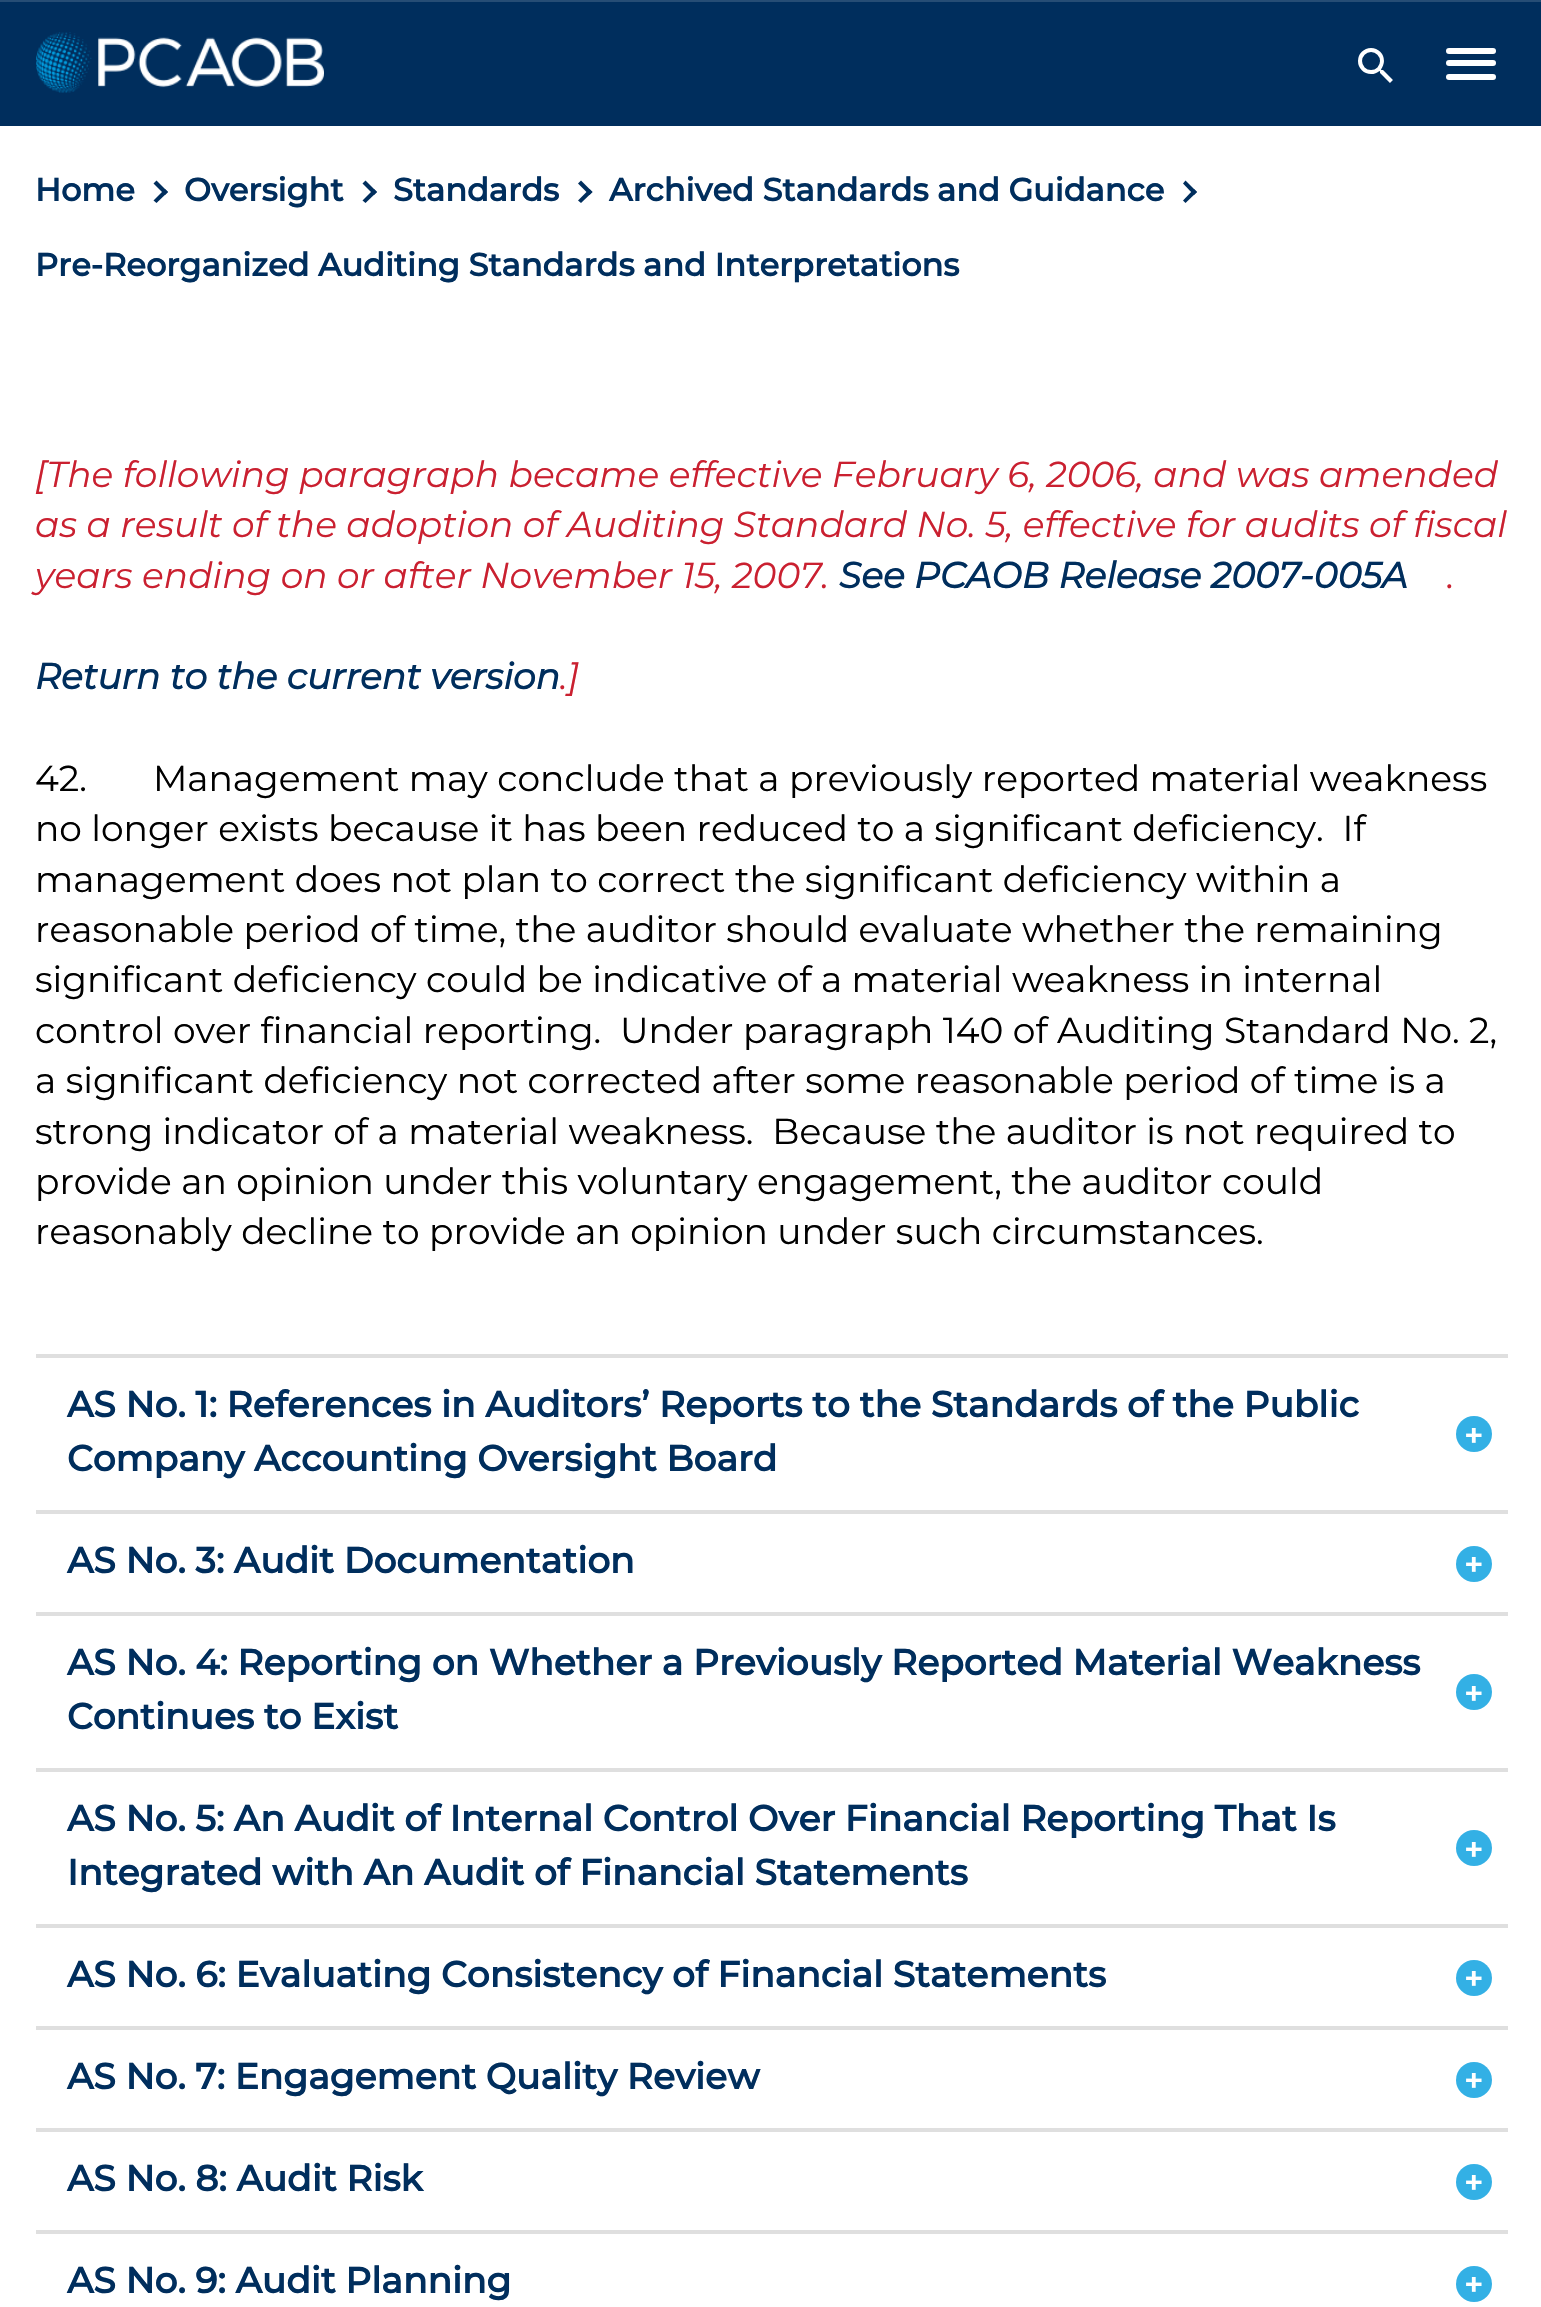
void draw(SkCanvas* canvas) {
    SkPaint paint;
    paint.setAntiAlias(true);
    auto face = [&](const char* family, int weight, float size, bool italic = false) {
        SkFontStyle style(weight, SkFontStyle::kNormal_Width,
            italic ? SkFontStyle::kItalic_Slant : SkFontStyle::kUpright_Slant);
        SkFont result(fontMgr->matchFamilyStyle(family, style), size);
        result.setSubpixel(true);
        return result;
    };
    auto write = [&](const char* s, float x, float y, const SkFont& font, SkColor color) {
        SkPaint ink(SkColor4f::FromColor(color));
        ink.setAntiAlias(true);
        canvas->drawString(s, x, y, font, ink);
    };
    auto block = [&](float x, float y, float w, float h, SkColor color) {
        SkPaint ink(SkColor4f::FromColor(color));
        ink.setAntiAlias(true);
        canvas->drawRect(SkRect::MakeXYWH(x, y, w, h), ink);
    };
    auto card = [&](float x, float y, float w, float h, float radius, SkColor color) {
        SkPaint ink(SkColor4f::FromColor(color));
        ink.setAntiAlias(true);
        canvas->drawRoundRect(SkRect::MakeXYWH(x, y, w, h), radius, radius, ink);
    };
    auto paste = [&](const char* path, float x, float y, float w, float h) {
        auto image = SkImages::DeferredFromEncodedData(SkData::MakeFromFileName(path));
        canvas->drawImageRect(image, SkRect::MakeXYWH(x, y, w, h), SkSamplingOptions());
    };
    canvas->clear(SK_ColorWHITE);
    block(0, 2, 1541, 124, SkColorSetRGB(0, 46, 93));
    block(0, 0, 1541, 2, SkColorSetRGB(38, 77, 117));
    paste("pic1.png", 36, 32, 288, 61);
    paste("pic2.png", 1358, 48, 35, 35);
    card(1446, 48, 50, 6, 3, SK_ColorWHITE);
    card(1446, 60, 50, 6, 3, SK_ColorWHITE);
    card(1446, 74, 50, 6, 3, SK_ColorWHITE);
    auto kFont1 = face("Montserrat", 700, 32);
    write("Home", 35, 201, kFont1, SkColorSetRGB(0, 46, 93));
    paint.setColor(SkColorSetRGB(0, 46, 93));
    canvas->drawPath(SkPathBuilder().moveTo(153.5f, 183.5f).lineTo(156.5f, 180.5f).lineTo(168, 192).lineTo(165, 195).close().detach(), paint);
    canvas->drawPath(SkPathBuilder().moveTo(153.5f, 200.5f).lineTo(165, 189).lineTo(168, 192).lineTo(156.5f, 203).close().detach(), paint);
    write("Oversight", 184, 201, kFont1, SkColorSetRGB(0, 46, 93));
    canvas->drawPath(SkPathBuilder().moveTo(362.5f, 183.5f).lineTo(365.5f, 180.5f).lineTo(377, 192).lineTo(374, 195).close().detach(), paint);
    canvas->drawPath(SkPathBuilder().moveTo(362.5f, 200.5f).lineTo(374, 189).lineTo(377, 192).lineTo(365.5f, 203).close().detach(), paint);
    write("Standards", 393, 201, kFont1, SkColorSetRGB(0, 46, 93));
    canvas->drawPath(SkPathBuilder().moveTo(578, 183.5f).lineTo(581, 180.5f).lineTo(592.5f, 192).lineTo(589.5f, 195).close().detach(), paint);
    canvas->drawPath(SkPathBuilder().moveTo(578, 200.5f).lineTo(589.5f, 189).lineTo(592.5f, 192).lineTo(581, 203).close().detach(), paint);
    write("Archived Standards and Guidance", 609, 201, kFont1, SkColorSetRGB(0, 46, 93));
    canvas->drawPath(SkPathBuilder().moveTo(1183, 183.5f).lineTo(1185.5f, 180.5f).lineTo(1197, 192).lineTo(1194, 195).close().detach(), paint);
    canvas->drawPath(SkPathBuilder().moveTo(1183, 200.5f).lineTo(1194, 189).lineTo(1197, 192).lineTo(1185.5f, 203).close().detach(), paint);
    write("Pre-Reorganized Auditing Standards and Interpretations", 35, 276, kFont1, SkColorSetRGB(0, 46, 93));
    auto kFont2 = face("Montserrat", 100, 36, true);
    write("[The following paragraph became effective February 6, 2006, and was amended", 35, 487, kFont2, SkColorSetRGB(202, 32, 48));
    write("as a result of the adoption of Auditing Standard No. 5, effective for audits of fiscal", 35, 537, kFont2, SkColorSetRGB(202, 32, 48));
    write("years ending on or after November 15, 2007.", 35, 588, kFont2, SkColorSetRGB(202, 32, 48));
    auto kFont3 = face("Montserrat", 700, 36, true);
    write("See PCAOB Release 2007-005A", 839, 588, kFont3, SkColorSetRGB(0, 46, 93));
    write(".", 1447, 588, kFont2, SkColorSetRGB(202, 32, 48));
    write("Return to the current version", 35, 689, kFont3, SkColorSetRGB(0, 46, 93));
    write(".]", 560, 689, kFont2, SkColorSetRGB(202, 32, 48));
    auto kFont4 = face("Montserrat", 400, 36);
    write("42.       Management may conclude that a previously reported material weakness", 35, 791, kFont4, SK_ColorBLACK);
    write("no longer exists because it has been reduced to a significant deficiency.  If", 35, 841, kFont4, SK_ColorBLACK);
    write("management does not plan to correct the significant deficiency within a", 35, 892, kFont4, SK_ColorBLACK);
    write("reasonable period of time, the auditor should evaluate whether the remaining", 35, 942, kFont4, SK_ColorBLACK);
    write("significant deficiency could be indicative of a material weakness in internal", 35, 992, kFont4, SK_ColorBLACK);
    write("control over financial reporting.  Under paragraph 140 of Auditing Standard No. 2,", 35, 1043, kFont4, SK_ColorBLACK);
    write("a significant deficiency not corrected after some reasonable period of time is a", 35, 1093, kFont4, SK_ColorBLACK);
    write("strong indicator of a material weakness.  Because the auditor is not required to", 35, 1144, kFont4, SK_ColorBLACK);
    write("provide an opinion under this voluntary engagement, the auditor could", 35, 1194, kFont4, SK_ColorBLACK);
    write("reasonably decline to provide an opinion under such circumstances.", 35, 1244, kFont4, SK_ColorBLACK);
    canvas->save();
    canvas->clipRect(SkRect::MakeXYWH(36, 1354, 1472, 156));
    paint.setColor(SkColorSetRGB(223, 223, 223));
    canvas->drawPath(SkPathBuilder(SkPathFillType::kEvenOdd).moveTo(-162, 1156).lineTo(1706, 1156).lineTo(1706, 1708).lineTo(-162, 1708).close().moveTo(36, 1358).lineTo(1508, 1358).cubicTo(1510, 1358, 1512, 1360, 1512, 1362).lineTo(1512, 1518).cubicTo(1512, 1520, 1510, 1522, 1508, 1522).lineTo(36, 1522).cubicTo(34, 1522, 32, 1520, 32, 1518).lineTo(32, 1362).cubicTo(32, 1360, 34, 1358, 36, 1358).close().detach(), paint);
    canvas->restore();
    auto kFont5 = face("Montserrat", 700, 36);
    write("AS No. 1: References in Auditors’ Reports to the Standards of the Public", 67, 1417, kFont5, SkColorSetRGB(0, 46, 93));
    paint.setColor(SkColorSetRGB(51, 176, 229));
    canvas->drawCircle(1474, 1434, 18, paint);
    write("+", 1464, 1447, kFont1, SK_ColorWHITE);
    write("Company Accounting Oversight Board", 67, 1471, kFont5, SkColorSetRGB(0, 46, 93));
    canvas->save();
    canvas->clipRect(SkRect::MakeXYWH(36, 1510, 1472, 102));
    paint.setColor(SkColorSetRGB(223, 223, 223));
    canvas->drawPath(SkPathBuilder(SkPathFillType::kEvenOdd).moveTo(-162, 1312).lineTo(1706, 1312).lineTo(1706, 1810).lineTo(-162, 1810).close().moveTo(36, 1514).lineTo(1508, 1514).cubicTo(1510, 1514, 1512, 1516, 1512, 1518).lineTo(1512, 1620).cubicTo(1512, 1622, 1510, 1624, 1508, 1624).lineTo(36, 1624).cubicTo(34, 1624, 32, 1622, 32, 1620).lineTo(32, 1518).cubicTo(32, 1516, 34, 1514, 36, 1514).close().detach(), paint);
    canvas->restore();
    write("AS No. 3: Audit Documentation", 67, 1573, kFont5, SkColorSetRGB(0, 46, 93));
    paint.setColor(SkColorSetRGB(51, 176, 229));
    canvas->drawCircle(1474, 1564, 18, paint);
    write("+", 1464, 1576, kFont1, SK_ColorWHITE);
    canvas->save();
    canvas->clipRect(SkRect::MakeXYWH(36, 1612, 1472, 156));
    paint.setColor(SkColorSetRGB(223, 223, 223));
    canvas->drawPath(SkPathBuilder(SkPathFillType::kEvenOdd).moveTo(-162, 1414).lineTo(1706, 1414).lineTo(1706, 1966).lineTo(-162, 1966).close().moveTo(36, 1616).lineTo(1508, 1616).cubicTo(1510, 1616, 1512, 1618, 1512, 1620).lineTo(1512, 1776).cubicTo(1512, 1778, 1510, 1780, 1508, 1780).lineTo(36, 1780).cubicTo(34, 1780, 32, 1778, 32, 1776).lineTo(32, 1620).cubicTo(32, 1618, 34, 1616, 36, 1616).close().detach(), paint);
    canvas->restore();
    write("AS No. 4: Reporting on Whether a Previously Reported Material Weakness", 67, 1675, kFont5, SkColorSetRGB(0, 46, 93));
    paint.setColor(SkColorSetRGB(51, 176, 229));
    canvas->drawCircle(1474, 1692, 18, paint);
    write("+", 1464, 1705, kFont1, SK_ColorWHITE);
    write("Continues to Exist", 67, 1729, kFont5, SkColorSetRGB(0, 46, 93));
    canvas->save();
    canvas->clipRect(SkRect::MakeXYWH(36, 1768, 1472, 156));
    paint.setColor(SkColorSetRGB(223, 223, 223));
    canvas->drawPath(SkPathBuilder(SkPathFillType::kEvenOdd).moveTo(-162, 1570).lineTo(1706, 1570).lineTo(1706, 2122).lineTo(-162, 2122).close().moveTo(36, 1772).lineTo(1508, 1772).cubicTo(1510, 1772, 1512, 1774, 1512, 1776).lineTo(1512, 1932).cubicTo(1512, 1934, 1510, 1936, 1508, 1936).lineTo(36, 1936).cubicTo(34, 1936, 32, 1934, 32, 1932).lineTo(32, 1776).cubicTo(32, 1774, 34, 1772, 36, 1772).close().detach(), paint);
    canvas->restore();
    write("AS No. 5: An Audit of Internal Control Over Financial Reporting That Is", 67, 1831, kFont5, SkColorSetRGB(0, 46, 93));
    paint.setColor(SkColorSetRGB(51, 176, 229));
    canvas->drawCircle(1474, 1848, 18, paint);
    write("+", 1464, 1861, kFont1, SK_ColorWHITE);
    write("Integrated with An Audit of Financial Statements", 67, 1885, kFont5, SkColorSetRGB(0, 46, 93));
    canvas->save();
    canvas->clipRect(SkRect::MakeXYWH(36, 1924, 1472, 102));
    paint.setColor(SkColorSetRGB(223, 223, 223));
    canvas->drawPath(SkPathBuilder(SkPathFillType::kEvenOdd).moveTo(-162, 1726).lineTo(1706, 1726).lineTo(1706, 2224).lineTo(-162, 2224).close().moveTo(36, 1928).lineTo(1508, 1928).cubicTo(1510, 1928, 1512, 1930, 1512, 1932).lineTo(1512, 2034).cubicTo(1512, 2036, 1510, 2038, 1508, 2038).lineTo(36, 2038).cubicTo(34, 2038, 32, 2036, 32, 2034).lineTo(32, 1932).cubicTo(32, 1930, 34, 1928, 36, 1928).close().detach(), paint);
    canvas->restore();
    write("AS No. 6: Evaluating Consistency of Financial Statements", 67, 1987, kFont5, SkColorSetRGB(0, 46, 93));
    paint.setColor(SkColorSetRGB(51, 176, 229));
    canvas->drawCircle(1474, 1978, 18, paint);
    write("+", 1464, 1990, kFont1, SK_ColorWHITE);
    canvas->save();
    canvas->clipRect(SkRect::MakeXYWH(36, 2026, 1472, 102));
    paint.setColor(SkColorSetRGB(223, 223, 223));
    canvas->drawPath(SkPathBuilder(SkPathFillType::kEvenOdd).moveTo(-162, 1828).lineTo(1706, 1828).lineTo(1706, 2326).lineTo(-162, 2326).close().moveTo(36, 2030).lineTo(1508, 2030).cubicTo(1510, 2030, 1512, 2032, 1512, 2034).lineTo(1512, 2136).cubicTo(1512, 2138, 1510, 2140, 1508, 2140).lineTo(36, 2140).cubicTo(34, 2140, 32, 2138, 32, 2136).lineTo(32, 2034).cubicTo(32, 2032, 34, 2030, 36, 2030).close().detach(), paint);
    canvas->restore();
    write("AS No. 7: Engagement Quality Review", 67, 2089, kFont5, SkColorSetRGB(0, 46, 93));
    paint.setColor(SkColorSetRGB(51, 176, 229));
    canvas->drawCircle(1474, 2080, 18, paint);
    write("+", 1464, 2092, kFont1, SK_ColorWHITE);
    canvas->save();
    canvas->clipRect(SkRect::MakeXYWH(36, 2128, 1472, 102));
    paint.setColor(SkColorSetRGB(223, 223, 223));
    canvas->drawPath(SkPathBuilder(SkPathFillType::kEvenOdd).moveTo(-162, 1930).lineTo(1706, 1930).lineTo(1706, 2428).lineTo(-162, 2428).close().moveTo(36, 2132).lineTo(1508, 2132).cubicTo(1510, 2132, 1512, 2134, 1512, 2136).lineTo(1512, 2238).cubicTo(1512, 2240, 1510, 2242, 1508, 2242).lineTo(36, 2242).cubicTo(34, 2242, 32, 2240, 32, 2238).lineTo(32, 2136).cubicTo(32, 2134, 34, 2132, 36, 2132).close().detach(), paint);
    canvas->restore();
    write("AS No. 8: Audit Risk", 67, 2191, kFont5, SkColorSetRGB(0, 46, 93));
    paint.setColor(SkColorSetRGB(51, 176, 229));
    canvas->drawCircle(1474, 2182, 18, paint);
    write("+", 1464, 2194, kFont1, SK_ColorWHITE);
    canvas->save();
    canvas->clipRect(SkRect::MakeXYWH(36, 2230, 1472, 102));
    paint.setColor(SkColorSetRGB(223, 223, 223));
    canvas->drawPath(SkPathBuilder(SkPathFillType::kEvenOdd).moveTo(-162, 2032).lineTo(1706, 2032).lineTo(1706, 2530).lineTo(-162, 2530).close().moveTo(36, 2234).lineTo(1508, 2234).cubicTo(1510, 2234, 1512, 2236, 1512, 2238).lineTo(1512, 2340).cubicTo(1512, 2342, 1510, 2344, 1508, 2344).lineTo(36, 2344).cubicTo(34, 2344, 32, 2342, 32, 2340).lineTo(32, 2238).cubicTo(32, 2236, 34, 2234, 36, 2234).close().detach(), paint);
    canvas->restore();
    write("AS No. 9: Audit Planning", 67, 2293, kFont5, SkColorSetRGB(0, 46, 93));
    paint.setColor(SkColorSetRGB(51, 176, 229));
    canvas->drawCircle(1474, 2284, 18, paint);
    write("+", 1464, 2296, kFont1, SK_ColorWHITE);
}
